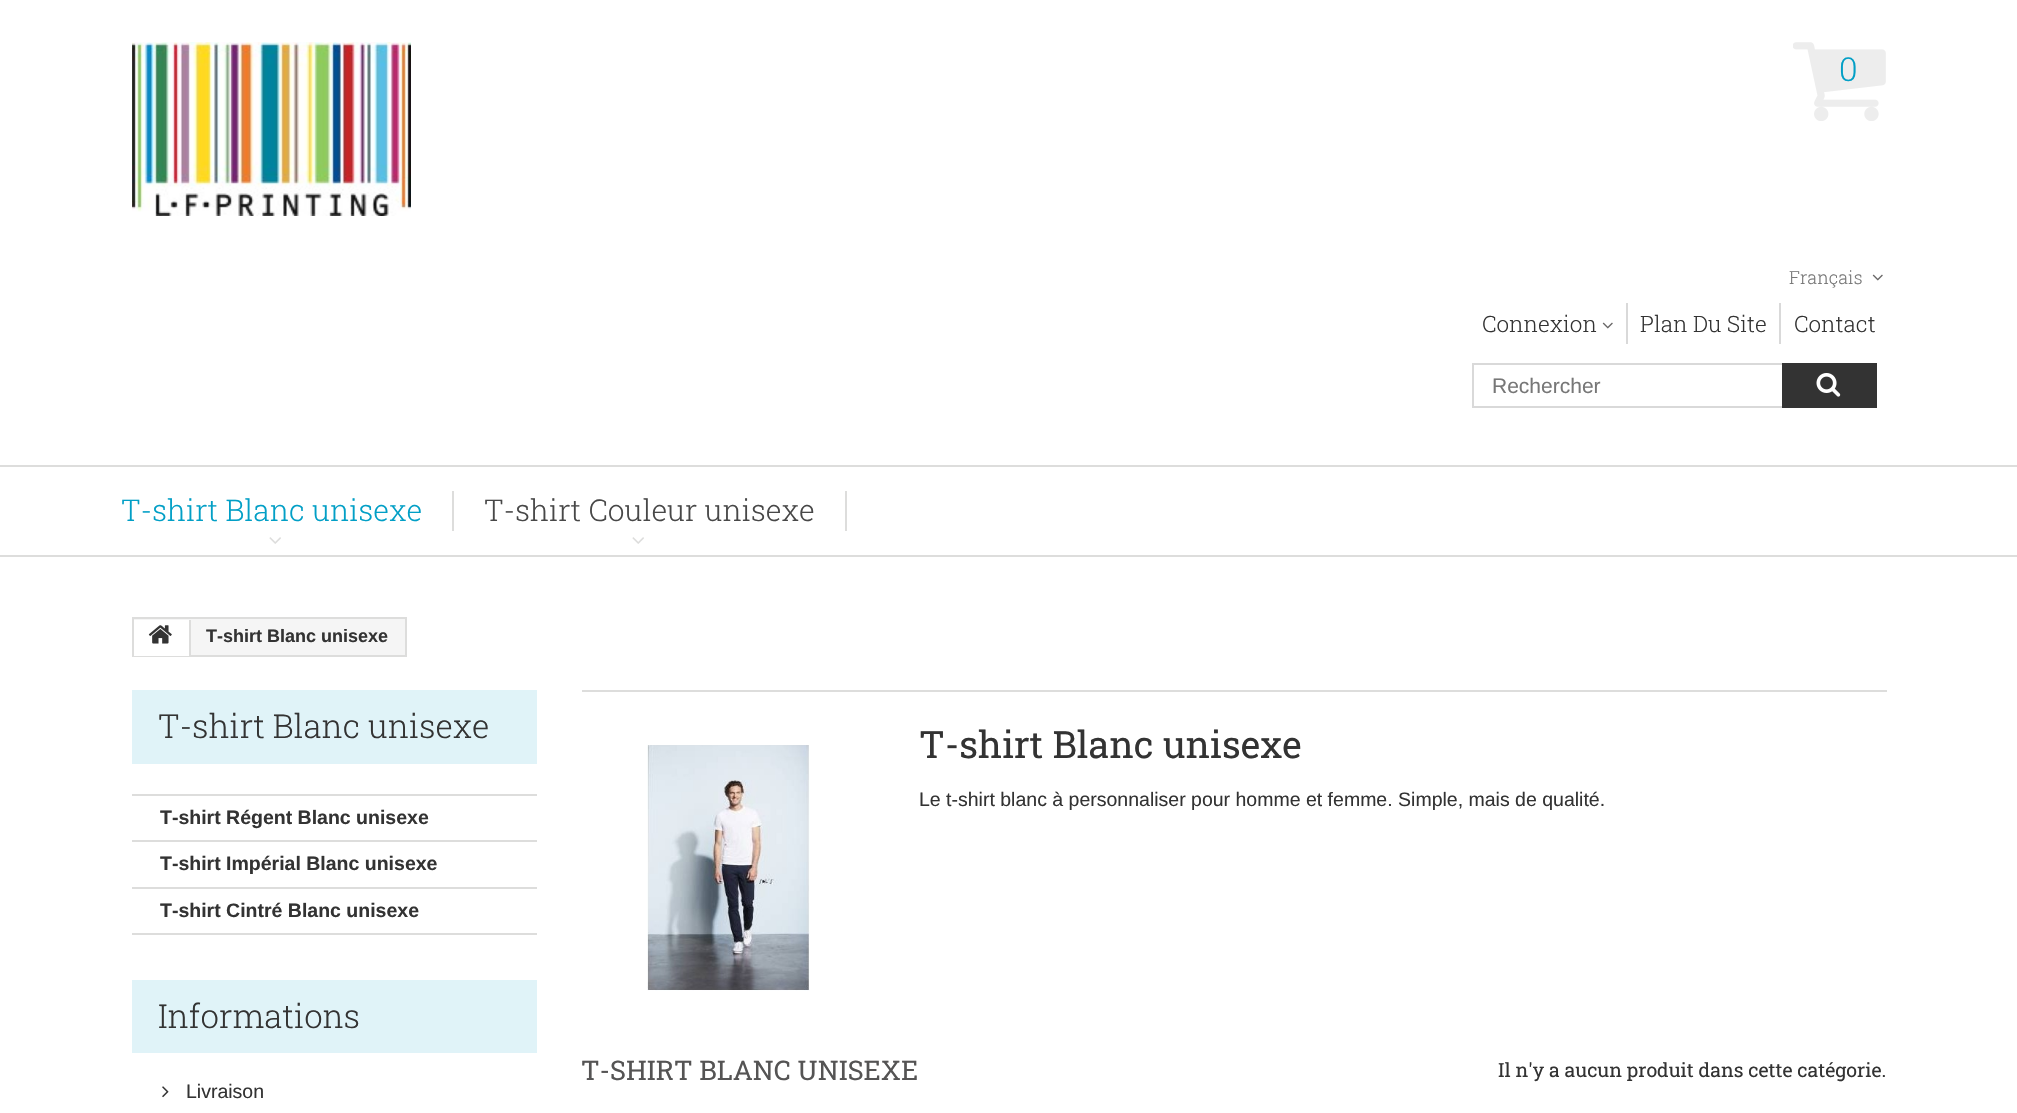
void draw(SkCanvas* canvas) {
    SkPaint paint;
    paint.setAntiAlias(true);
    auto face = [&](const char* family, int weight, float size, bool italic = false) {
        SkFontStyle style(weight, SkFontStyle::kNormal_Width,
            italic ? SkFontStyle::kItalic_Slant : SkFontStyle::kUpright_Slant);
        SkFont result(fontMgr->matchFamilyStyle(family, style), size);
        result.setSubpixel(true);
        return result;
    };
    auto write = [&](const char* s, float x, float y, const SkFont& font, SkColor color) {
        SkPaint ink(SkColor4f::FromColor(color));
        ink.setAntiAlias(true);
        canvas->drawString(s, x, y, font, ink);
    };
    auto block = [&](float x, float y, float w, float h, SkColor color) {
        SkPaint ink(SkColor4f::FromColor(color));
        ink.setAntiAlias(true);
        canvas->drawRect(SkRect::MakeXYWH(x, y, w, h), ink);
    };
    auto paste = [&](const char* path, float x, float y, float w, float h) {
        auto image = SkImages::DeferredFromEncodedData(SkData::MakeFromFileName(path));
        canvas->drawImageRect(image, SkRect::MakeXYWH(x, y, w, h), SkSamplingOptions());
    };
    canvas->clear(SK_ColorWHITE);
    paste("pic1.png", 132, 42, 279, 174);
    paste("pic2.png", 1793, 42, 93, 79);
    auto kFont1 = face("Roboto Slab", 300, 33);
    write("0", 1839, 81, kFont1, SkColorSetRGB(2, 159, 198));
    auto kFont2 = face("Roboto Slab", 300, 18);
    write("Français", 1789, 284, kFont2, SkColorSetRGB(119, 119, 119));
    paste("pic3.png", 1872, 274, 11, 7);
    auto kFont3 = face("Roboto Slab", 300, 22.5f);
    write("Connexion", 1482, 332, kFont3, SkColorSetRGB(51, 51, 51));
    paste("pic3.png", 1602, 322, 11, 7);
    block(1626, 303, 2, 41, SkColorSetRGB(217, 217, 217));
    write("Plan Du Site", 1640, 332, kFont3, SkColorSetRGB(51, 51, 51));
    block(1779, 303, 2, 41, SkColorSetRGB(217, 217, 217));
    write("Contact", 1794, 332, kFont3, SkColorSetRGB(51, 51, 51));
    paint.setStyle(SkPaint::kStroke_Style);
    paint.setStrokeWidth(2);
    paint.setColor(SkColorSetRGB(217, 217, 217));
    canvas->drawRect(SkRect::MakeXYWH(1473, 364, 403, 43), paint);
    auto kFont4 = face("Liberation Sans", 400, 21);
    write("Rechercher", 1492, 393, kFont4, SkColorSetRGB(119, 119, 119));
    block(1782, 363, 95, 45, SkColorSetRGB(51, 51, 51));
    paste("pic4.png", 1816, 373, 25, 24);
    block(0, 465, 2017, 2, SkColorSetRGB(221, 221, 220));
    block(0, 555, 2017, 2, SkColorSetRGB(221, 221, 220));
    block(452, 491, 2, 40, SkColorSetRGB(221, 221, 220));
    auto kFont5 = face("Roboto Slab", 300, 30);
    write("T-shirt Blanc unisexe", 121, 521, kFont5, SkColorSetRGB(2, 159, 198));
    paste("pic5.png", 269, 537, 12, 7);
    block(845, 491, 2, 40, SkColorSetRGB(221, 221, 220));
    write("T-shirt Couleur unisexe", 484, 521, kFont5, SkColorSetRGB(72, 72, 72));
    paste("pic5.png", 632, 537, 12, 7);
    paint.setStyle(SkPaint::kFill_Style);
    paint.setColor(SkColorSetRGB(245, 245, 245));
    canvas->drawRect(SkRect::MakeXYWH(133, 618, 273, 38), paint);
    paint.setStyle(SkPaint::kStroke_Style);
    paint.setColor(SkColorSetRGB(221, 221, 220));
    canvas->drawRect(SkRect::MakeXYWH(133, 618, 273, 38), paint);
    block(134, 620, 55, 36, SK_ColorWHITE);
    block(189, 620, 2, 36, SkColorSetRGB(221, 221, 220));
    paste("pic6.png", 148, 625, 24, 19);
    auto kFont6 = face("Liberation Sans", 700, 18);
    write("T-shirt Blanc unisexe", 206, 642, kFont6, SkColorSetRGB(51, 51, 51));
    block(132, 690, 405, 74, SkColorSetRGB(224, 243, 248));
    write("T-shirt Blanc unisexe", 158, 738, kFont1, SkColorSetRGB(51, 51, 51));
    block(132, 794, 405, 2, SkColorSetRGB(221, 221, 220));
    block(132, 840, 405, 2, SkColorSetRGB(221, 221, 220));
    auto kFont7 = face("Liberation Sans", 700, 19.5f);
    write("T-shirt Régent Blanc unisexe", 160, 824, kFont7, SkColorSetRGB(51, 51, 51));
    block(132, 887, 405, 2, SkColorSetRGB(221, 221, 220));
    write("T-shirt Impérial Blanc unisexe", 160, 870, kFont7, SkColorSetRGB(51, 51, 51));
    block(132, 933, 405, 2, SkColorSetRGB(221, 221, 220));
    write("T-shirt Cintré Blanc unisexe", 160, 917, kFont7, SkColorSetRGB(51, 51, 51));
    block(132, 980, 405, 73, SkColorSetRGB(224, 243, 248));
    write("Informations", 158, 1028, kFont1, SkColorSetRGB(51, 51, 51));
    paste("pic7.png", 162, 1086, 7, 12);
    auto kFont8 = face("Liberation Sans", 400, 19.5f);
    write("Livraison", 186, 1098, kFont8, SkColorSetRGB(51, 51, 51));
    block(582, 690, 1305, 2, SkColorSetRGB(221, 221, 220));
    paste("pic8.png", 647, 745, 163, 246);
    auto kFont9 = face("Roboto Slab", 400, 37.5f);
    write("T-shirt Blanc unisexe", 919, 758, kFont9, SkColorSetRGB(51, 51, 51));
    write("Le t-shirt blanc à personnaliser pour homme et femme. Simple, mais de qualité.", 919, 806, kFont8, SkColorSetRGB(51, 51, 51));
    auto kFont10 = face("Roboto Slab", 400, 27);
    write("T-SHIRT BLANC UNISEXE", 581, 1080, kFont10, SkColorSetRGB(85, 84, 84));
    auto kFont11 = face("Roboto Slab", 400, 19.5f);
    write("Il n'y a aucun produit dans cette catégorie.", 1498, 1077, kFont11, SkColorSetRGB(51, 51, 51));
}
